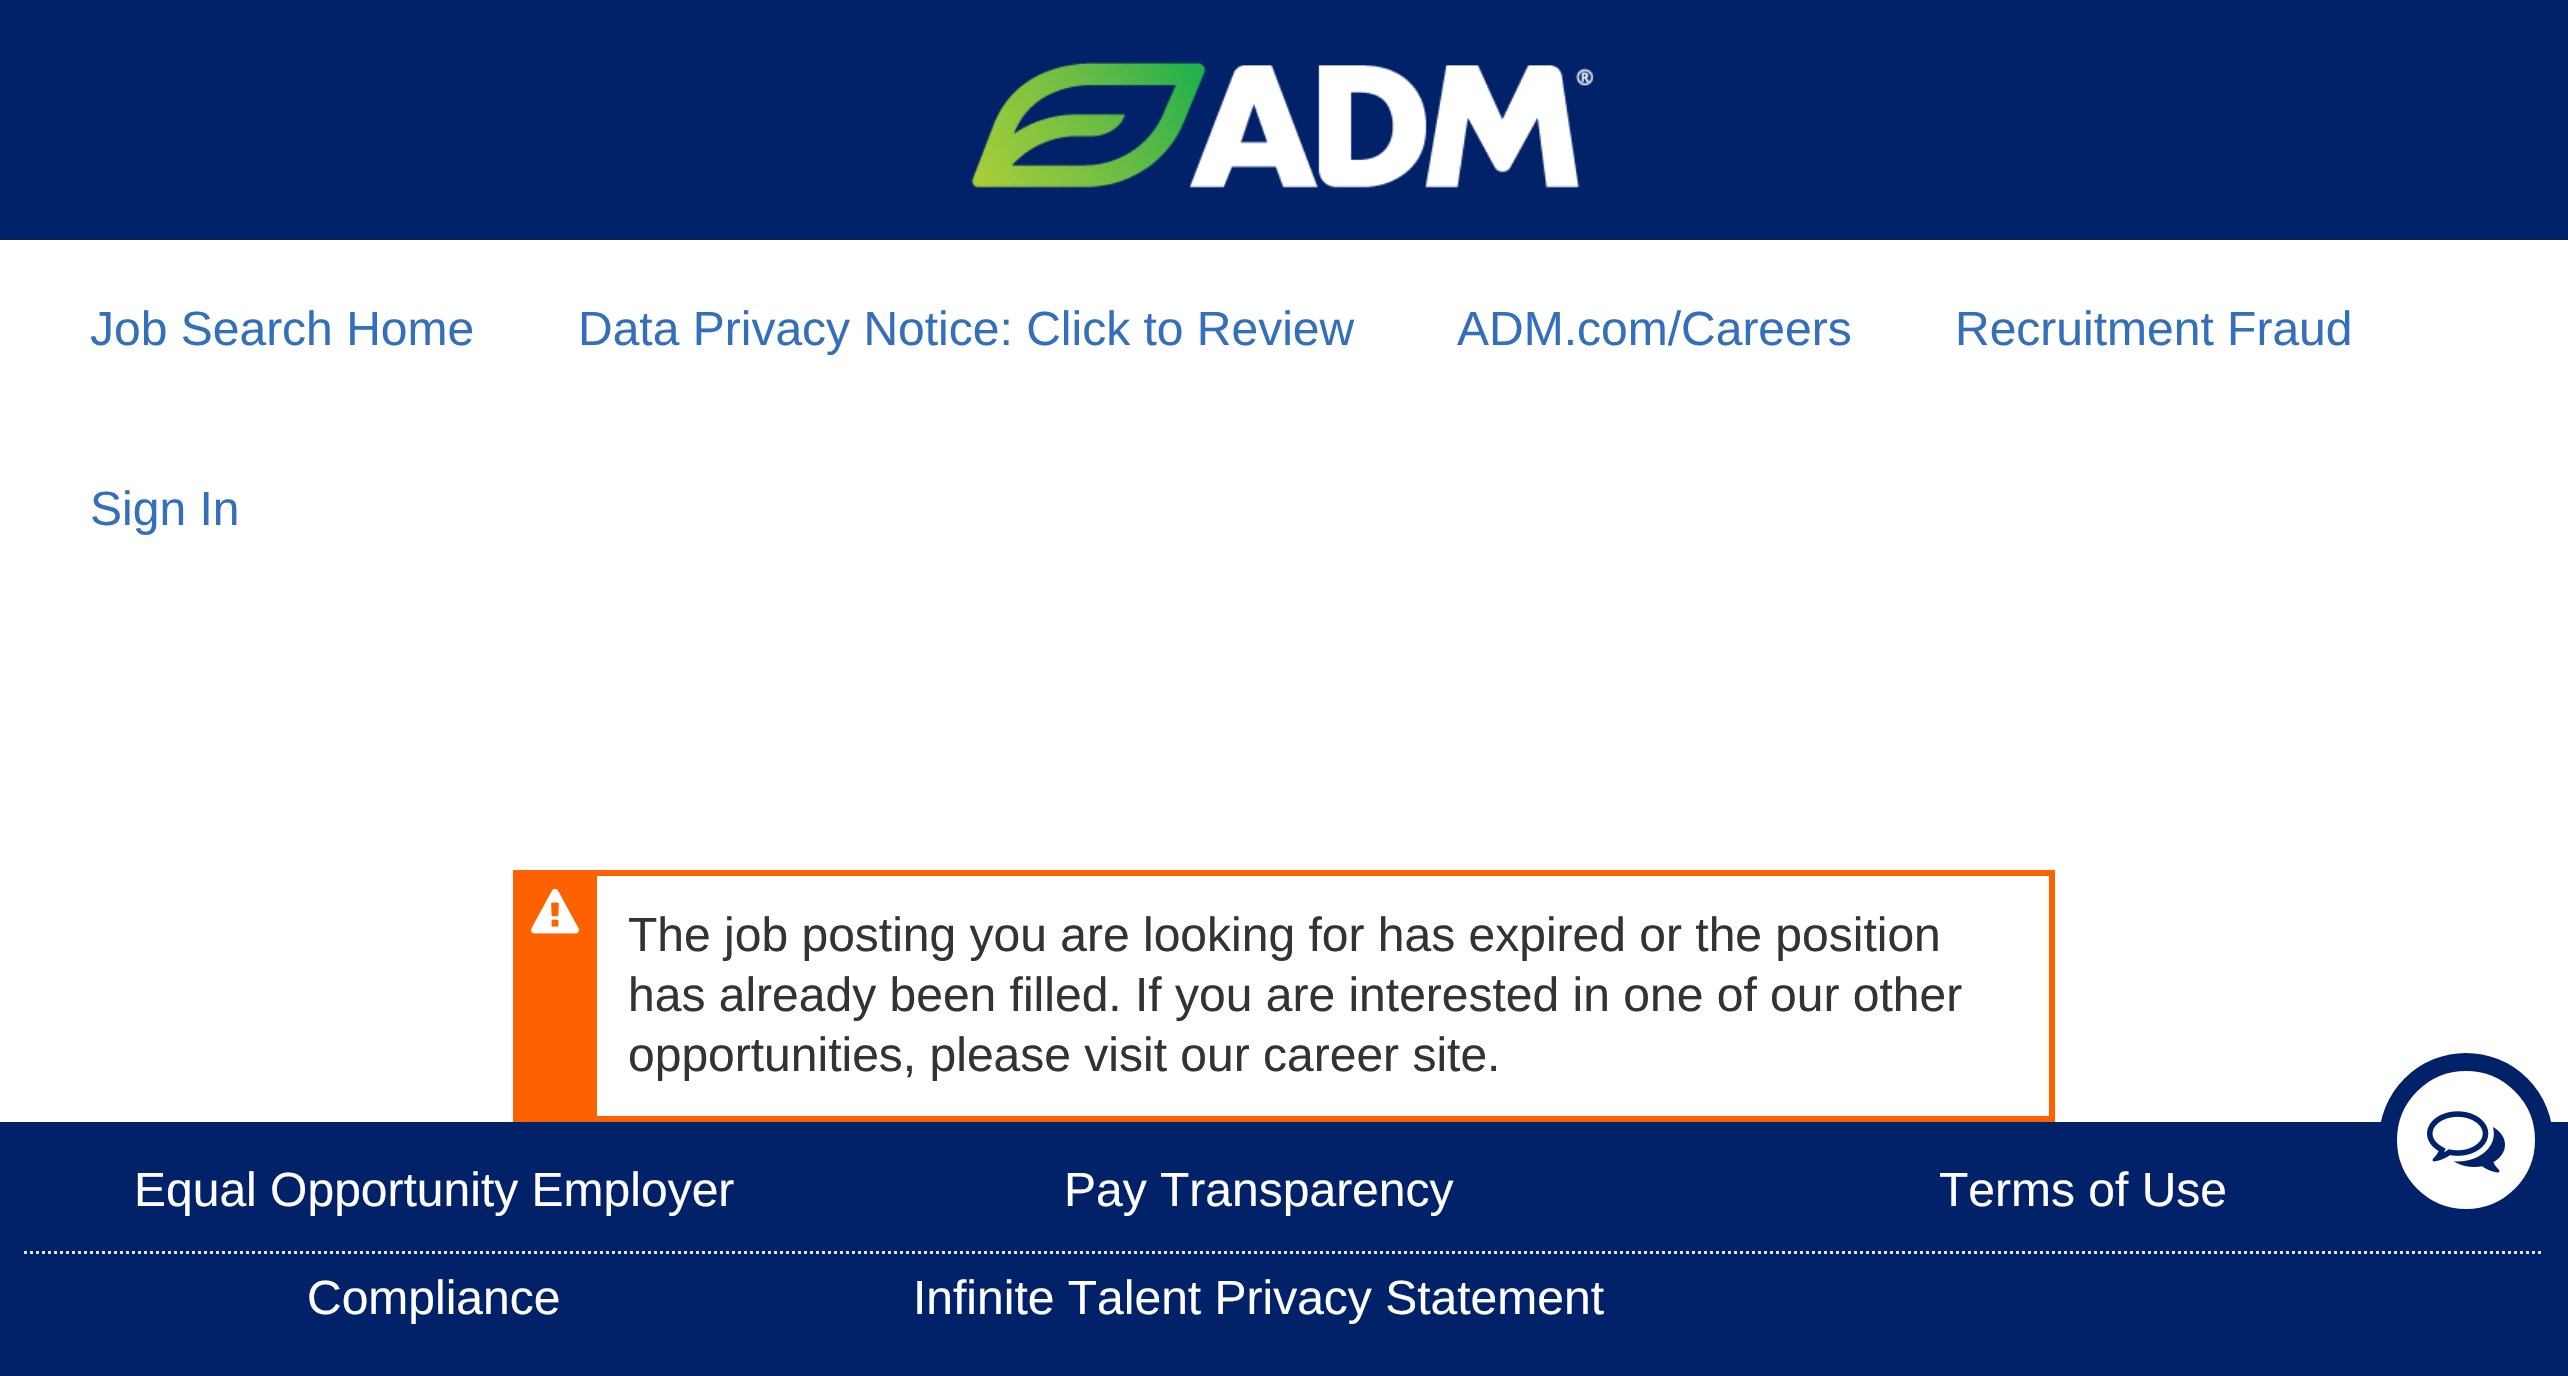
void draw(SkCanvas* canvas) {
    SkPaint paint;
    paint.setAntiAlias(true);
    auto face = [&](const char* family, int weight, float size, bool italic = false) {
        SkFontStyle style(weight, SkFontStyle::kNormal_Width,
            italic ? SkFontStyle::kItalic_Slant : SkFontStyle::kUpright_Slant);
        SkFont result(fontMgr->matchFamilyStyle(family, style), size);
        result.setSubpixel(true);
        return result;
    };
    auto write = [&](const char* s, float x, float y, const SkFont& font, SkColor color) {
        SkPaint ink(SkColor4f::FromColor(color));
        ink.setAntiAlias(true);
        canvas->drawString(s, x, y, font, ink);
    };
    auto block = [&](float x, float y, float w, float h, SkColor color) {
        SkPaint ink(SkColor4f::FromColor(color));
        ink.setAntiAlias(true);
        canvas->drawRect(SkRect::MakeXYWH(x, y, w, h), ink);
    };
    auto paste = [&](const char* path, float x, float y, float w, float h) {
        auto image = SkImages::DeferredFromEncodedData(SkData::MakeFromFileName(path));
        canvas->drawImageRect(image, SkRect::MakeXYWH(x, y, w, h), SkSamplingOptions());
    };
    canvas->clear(SK_ColorWHITE);
    block(0, 0, 2568, 240, SkColorSetRGB(1, 33, 105));
    paste("pic1.png", 971, 62, 623, 126);
    auto kFont1 = face("Liberation Sans", 400, 48);
    write("Job Search Home", 90, 345, kFont1, SkColorSetRGB(51, 111, 187));
    write("Data Privacy Notice: Click to Review", 578, 345, kFont1, SkColorSetRGB(51, 111, 187));
    write("ADM.com/Careers", 1457, 345, kFont1, SkColorSetRGB(51, 111, 187));
    write("Recruitment Fraud", 1955, 345, kFont1, SkColorSetRGB(51, 111, 187));
    write("Sign In", 90, 525, kFont1, SkColorSetRGB(51, 111, 187));
    block(513, 870, 78, 252, SkColorSetRGB(254, 97, 0));
    paste("pic2.png", 531, 888, 48, 46);
    paint.setStyle(SkPaint::kStroke_Style);
    paint.setStrokeWidth(6);
    paint.setColor(SkColorSetRGB(254, 97, 0));
    canvas->drawRect(SkRect::MakeXYWH(594, 873, 1458, 246), paint);
    write("The job posting you are looking for has expired or the position", 628, 951, kFont1, SkColorSetRGB(51, 51, 51));
    write("has already been filled. If you are interested in one of our other", 628, 1011, kFont1, SkColorSetRGB(51, 51, 51));
    write("opportunities, please visit our career site.", 628, 1071, kFont1, SkColorSetRGB(51, 51, 51));
    block(0, 1122, 2568, 254, SkColorSetRGB(1, 33, 105));
    paint.setStyle(SkPaint::kFill_Style);
    paint.setColor(SK_ColorWHITE);
    canvas->drawCircle(2466, 1140, 78, paint);
    paint.setStyle(SkPaint::kStroke_Style);
    paint.setStrokeWidth(18);
    paint.setColor(SkColorSetRGB(1, 33, 105));
    canvas->drawCircle(2466, 1140, 78, paint);
    paste("pic3.png", 2427, 1111, 78, 62);
    paint.setStrokeWidth(3);
    paint.setColor(SkColorSetRGB(224, 224, 224));
    paint.setPathEffect(SkDashPathEffect::Make({{3, 3}}, 0));
    canvas->drawPath(SkPathBuilder().moveTo(24, 1252.5f).lineTo(2544, 1252.5f).detach(), paint);
    paint.setPathEffect(nullptr);
    write("Equal Opportunity Employer", 134, 1206, kFont1, SK_ColorWHITE);
    write("Pay Transparency", 1064, 1206, kFont1, SK_ColorWHITE);
    write("Terms of Use", 1939, 1206, kFont1, SK_ColorWHITE);
    write("Compliance", 307, 1314, kFont1, SK_ColorWHITE);
    write("Infinite Talent Privacy Statement", 913, 1314, kFont1, SK_ColorWHITE);
}
